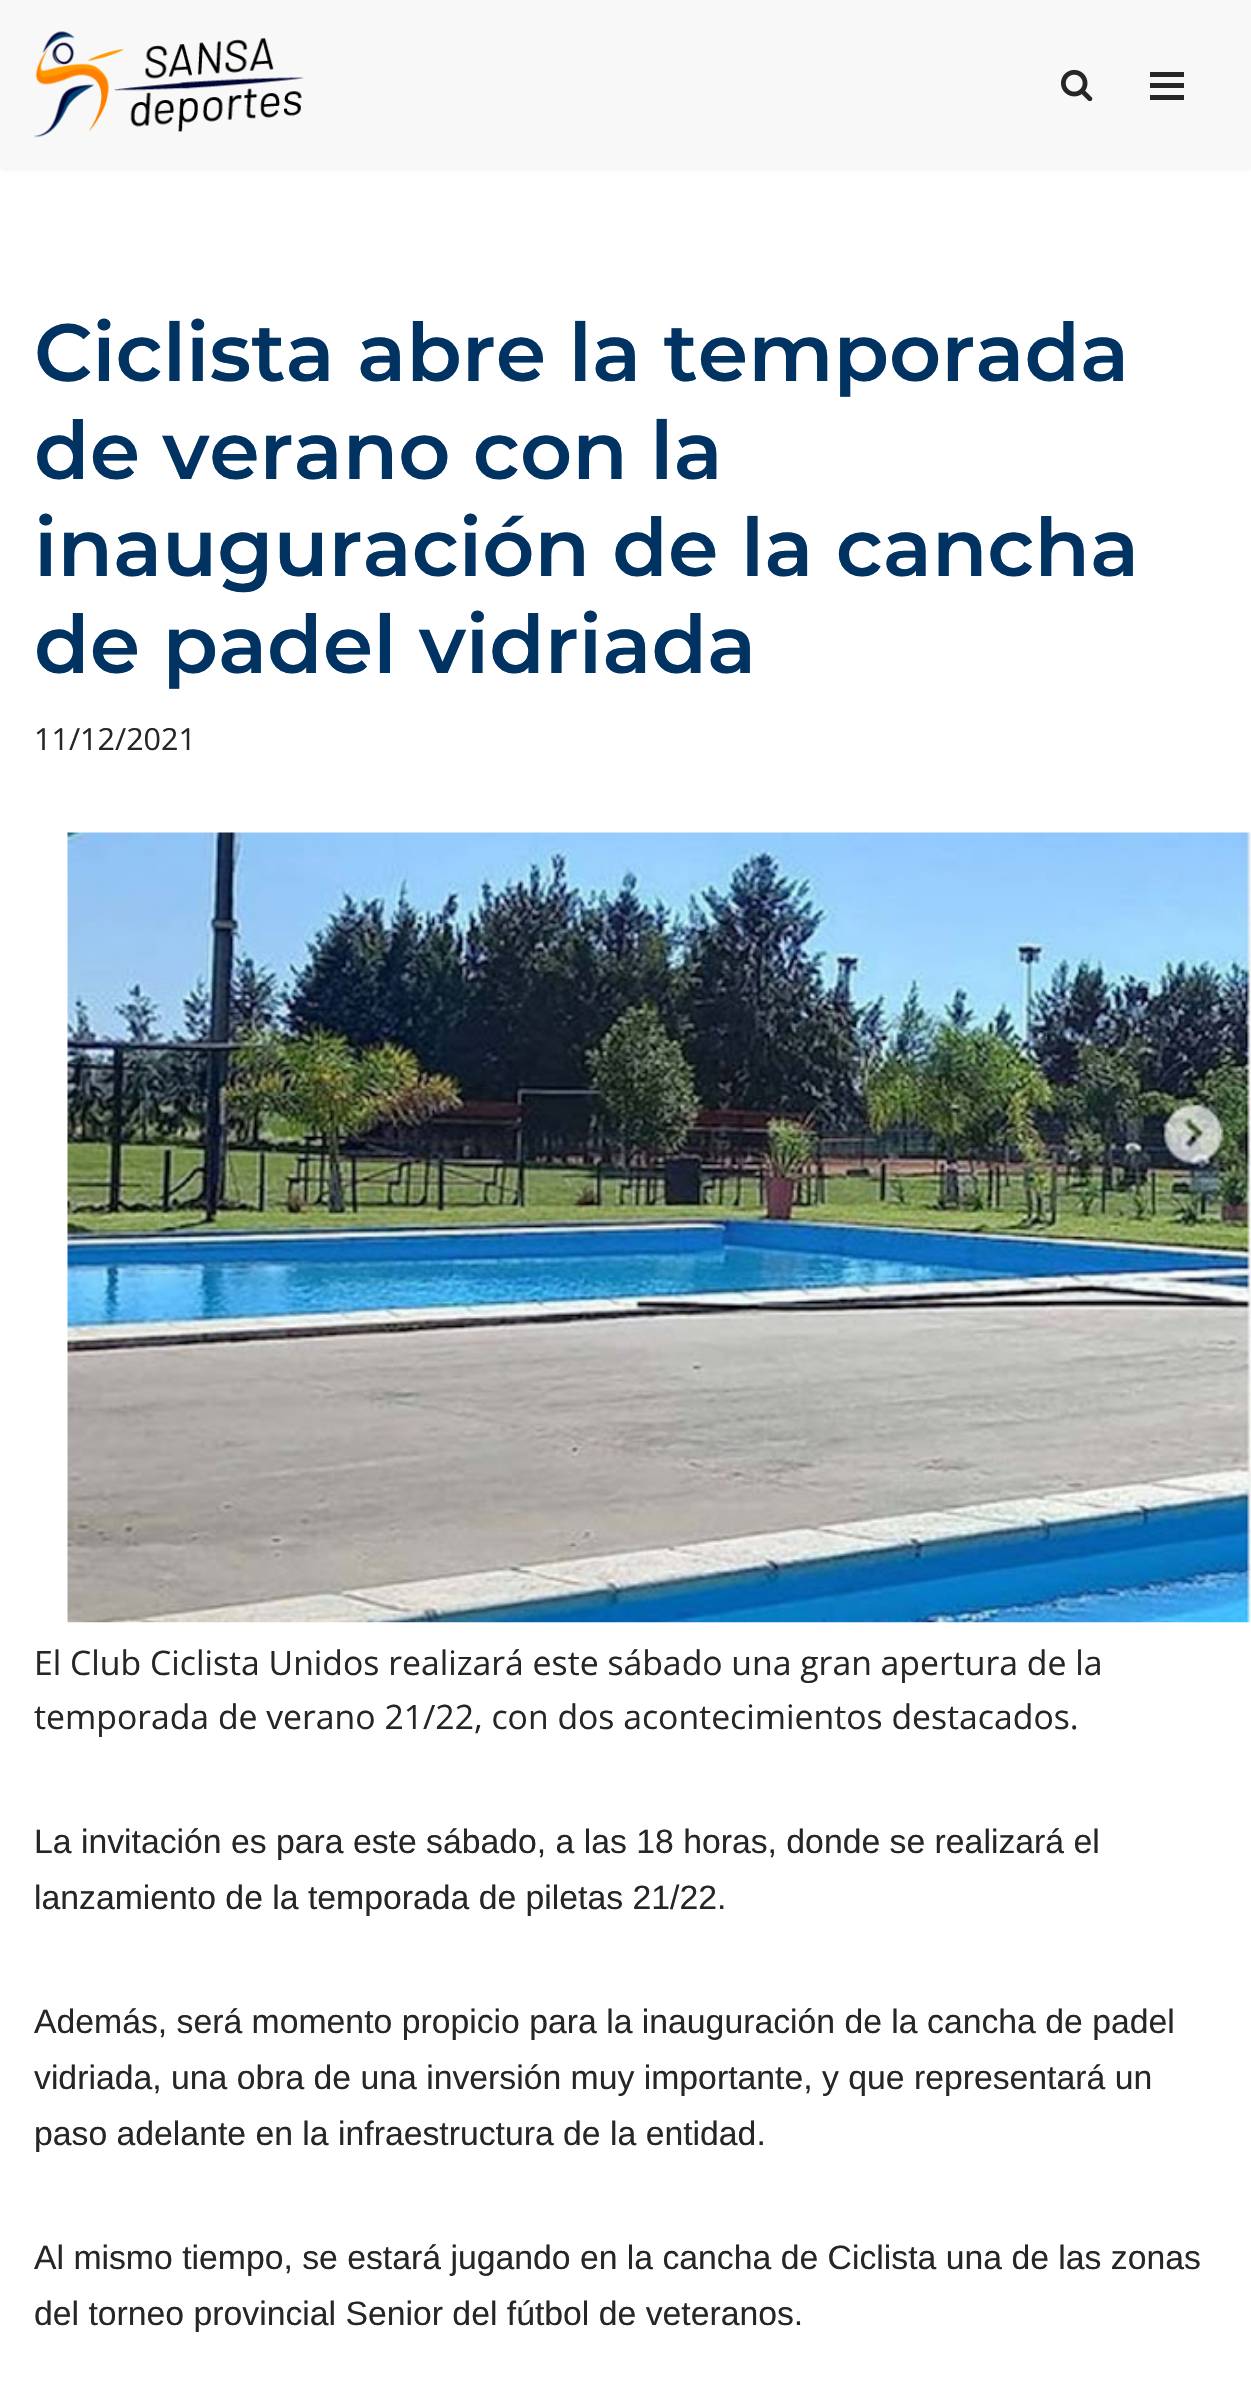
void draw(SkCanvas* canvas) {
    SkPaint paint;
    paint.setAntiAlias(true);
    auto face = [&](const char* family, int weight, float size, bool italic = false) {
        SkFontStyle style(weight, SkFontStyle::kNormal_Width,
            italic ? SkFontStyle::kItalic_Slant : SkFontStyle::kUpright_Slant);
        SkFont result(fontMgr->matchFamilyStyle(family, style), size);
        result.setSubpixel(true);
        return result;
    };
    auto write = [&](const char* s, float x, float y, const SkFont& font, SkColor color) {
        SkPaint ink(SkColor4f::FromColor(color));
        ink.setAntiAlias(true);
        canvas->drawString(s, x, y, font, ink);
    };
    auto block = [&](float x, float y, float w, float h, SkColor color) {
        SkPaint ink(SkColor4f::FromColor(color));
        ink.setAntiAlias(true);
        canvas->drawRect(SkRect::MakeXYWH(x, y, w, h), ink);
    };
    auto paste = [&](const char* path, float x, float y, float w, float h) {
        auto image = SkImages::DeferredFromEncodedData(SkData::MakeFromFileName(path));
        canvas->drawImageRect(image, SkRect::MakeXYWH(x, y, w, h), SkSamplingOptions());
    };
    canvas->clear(SK_ColorWHITE);
    paint.setColor(SkColorSetARGB(26, 0, 0, 0));
    paint.setMaskFilter(SkMaskFilter::MakeBlur(kNormal_SkBlurStyle, 3.5f));
    canvas->drawRect(SkRect::MakeXYWH(0, -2, 1251, 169), paint);
    paint.setMaskFilter(nullptr);
    block(0, 0, 1251, 168, SkColorSetRGB(248, 248, 248));
    paste("pic1.png", 34, 31, 270, 107);
    paste("pic2.png", 1061, 69, 32, 32);
    block(1150, 72, 34, 5, SkColorSetRGB(39, 38, 38));
    block(1150, 83, 34, 5, SkColorSetRGB(39, 38, 38));
    block(1150, 95, 34, 5, SkColorSetRGB(39, 38, 38));
    auto kFont1 = face("Montserrat", 600, 81);
    write("Ciclista abre la temporada", 34, 381, kFont1, SkColorSetRGB(0, 51, 98));
    write("de verano con la", 34, 479, kFont1, SkColorSetRGB(0, 51, 98));
    write("inauguración de la cancha", 34, 576, kFont1, SkColorSetRGB(0, 51, 98));
    write("de padel vidriada", 34, 673, kFont1, SkColorSetRGB(0, 51, 98));
    auto kFont2 = face("Open Sans", 400, 30.5f);
    write("11/12/2021", 34, 750, kFont2, SkColorSetRGB(39, 38, 38));
    paste("pic3.png", 67, 832, 1184, 791);
    auto kFont3 = face("Open Sans", 400, 33.75f);
    write("El Club Ciclista Unidos realizará este sábado una gran apertura de la", 34, 1675, kFont3, SkColorSetRGB(39, 38, 38));
    write("temporada de verano 21/22, con dos acontecimientos destacados.", 34, 1729, kFont3, SkColorSetRGB(39, 38, 38));
    auto kFont4 = face("Liberation Sans", 400, 33.75f);
    write("La invitación es para este sábado, a las 18 horas, donde se realizará el", 34, 1853, kFont4, SkColorSetRGB(39, 38, 38));
    write("lanzamiento de la temporada de piletas 21/22.", 34, 1909, kFont4, SkColorSetRGB(39, 38, 38));
    write("Además, será momento propicio para la inauguración de la cancha de padel", 34, 2033, kFont4, SkColorSetRGB(39, 38, 38));
    write("vidriada, una obra de una inversión muy importante, y que representará un", 34, 2089, kFont4, SkColorSetRGB(39, 38, 38));
    write("paso adelante en la infraestructura de la entidad.", 34, 2145, kFont4, SkColorSetRGB(39, 38, 38));
    write("Al mismo tiempo, se estará jugando en la cancha de Ciclista una de las zonas", 34, 2269, kFont4, SkColorSetRGB(39, 38, 38));
    write("del torneo provincial Senior del fútbol de veteranos.", 34, 2325, kFont4, SkColorSetRGB(39, 38, 38));
}
